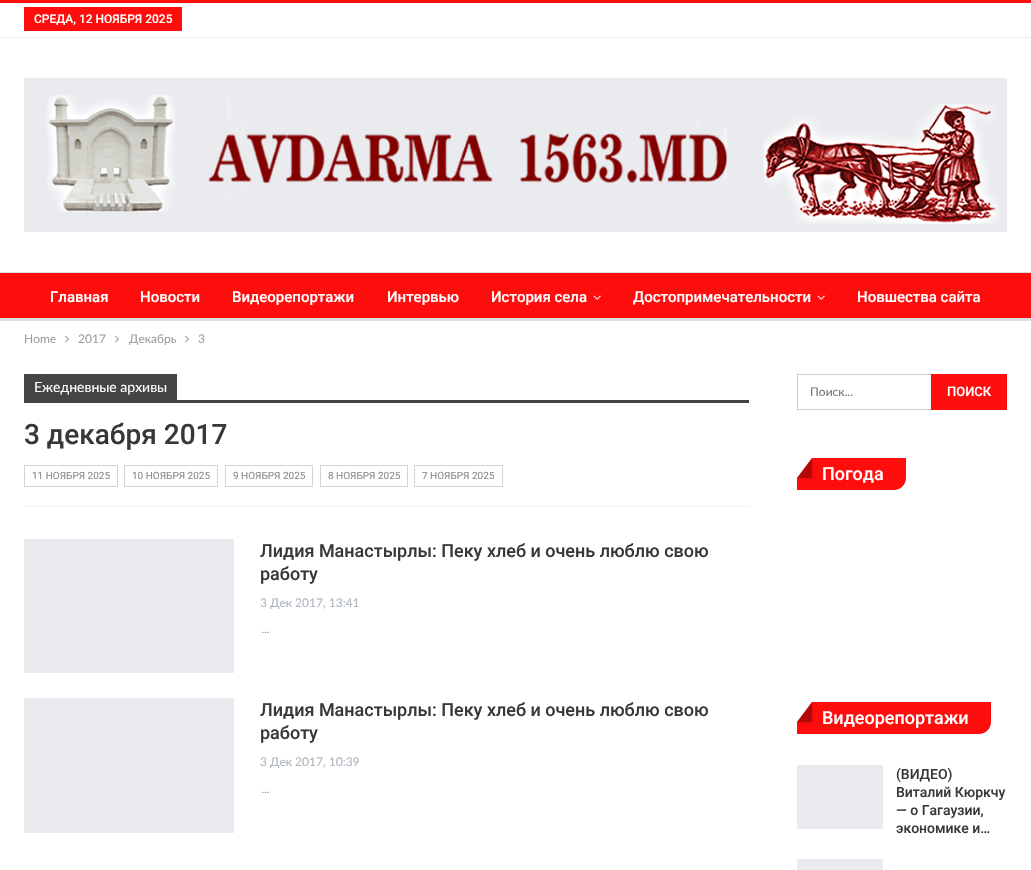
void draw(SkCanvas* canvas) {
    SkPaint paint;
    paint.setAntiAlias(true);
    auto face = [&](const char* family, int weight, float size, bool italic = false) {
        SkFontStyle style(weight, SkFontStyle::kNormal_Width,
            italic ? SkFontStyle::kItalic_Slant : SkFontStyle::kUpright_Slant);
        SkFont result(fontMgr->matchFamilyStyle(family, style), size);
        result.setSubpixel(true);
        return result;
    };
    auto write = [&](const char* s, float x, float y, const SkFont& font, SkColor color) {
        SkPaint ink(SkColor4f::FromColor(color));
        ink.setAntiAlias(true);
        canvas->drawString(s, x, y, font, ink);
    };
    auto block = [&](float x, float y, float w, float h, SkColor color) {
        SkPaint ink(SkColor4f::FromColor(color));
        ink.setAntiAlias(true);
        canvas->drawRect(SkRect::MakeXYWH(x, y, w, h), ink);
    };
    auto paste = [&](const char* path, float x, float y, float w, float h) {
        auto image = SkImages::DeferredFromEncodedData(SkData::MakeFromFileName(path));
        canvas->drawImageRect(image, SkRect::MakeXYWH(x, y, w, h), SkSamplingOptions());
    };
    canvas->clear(SK_ColorWHITE);
    block(0, 0, 1031, 3, SkColorSetRGB(255, 12, 12));
    block(0, 37, 1031, 1, SkColorSetRGB(237, 237, 237));
    block(24, 7, 158, 24, SkColorSetRGB(255, 12, 12));
    auto kFont1 = face("Roboto", 500, 12);
    write("СРЕДА, 12 НОЯБРЯ 2025", 34, 23, kFont1, SK_ColorWHITE);
    block(24, 78, 983, 154, SkColorSetRGB(233, 235, 238));
    paste("pic1.png", 47, 95, 952, 129);
    block(0, 273, 1031, 45, SkColorSetRGB(255, 12, 12));
    block(0, 272, 1031, 1, SkColorSetRGB(222, 222, 222));
    block(0, 318, 1031, 3, SkColorSetRGB(222, 222, 222));
    auto kFont2 = face("Roboto", 500, 15);
    write("Главная", 50, 302, kFont2, SK_ColorWHITE);
    write("Новости", 140, 302, kFont2, SK_ColorWHITE);
    write("Видеорепортажи", 232, 302, kFont2, SK_ColorWHITE);
    write("Интервью", 387, 302, kFont2, SK_ColorWHITE);
    write("История села", 491, 302, kFont2, SK_ColorWHITE);
    paste("pic2.png", 593, 295, 8, 5);
    write("Достопримечательности", 633, 302, kFont2, SK_ColorWHITE);
    paste("pic2.png", 817, 295, 8, 5);
    write("Новшества сайта", 857, 302, kFont2, SK_ColorWHITE);
    auto kFont3 = face("Lato", 400, 12);
    write("Home", 24, 343, kFont3, SkColorSetRGB(158, 158, 158));
    paste("pic3.png", 65, 335, 4, 8);
    write("2017", 78, 343, kFont3, SkColorSetRGB(158, 158, 158));
    paste("pic3.png", 115, 335, 4, 8);
    write("Декабрь", 129, 343, kFont3, SkColorSetRGB(158, 158, 158));
    paste("pic3.png", 185, 335, 4, 8);
    write("3", 198, 343, kFont3, SkColorSetRGB(158, 158, 158));
    block(24, 506, 725, 1, SkColorSetRGB(240, 240, 240));
    block(24, 374, 153, 26, SkColorSetRGB(68, 68, 68));
    auto kFont4 = face("Lato", 400, 14);
    write("Ежедневные архивы", 34, 392, kFont4, SK_ColorWHITE);
    block(24, 400, 725, 3, SkColorSetRGB(68, 68, 68));
    auto kFont5 = face("Roboto", 500, 28);
    write("3 декабря 2017", 24, 444, kFont5, SkColorSetRGB(56, 56, 56));
    paint.setStyle(SkPaint::kStroke_Style);
    paint.setStrokeWidth(1);
    paint.setColor(SkColorSetRGB(212, 212, 212));
    canvas->drawRect(SkRect::MakeXYWH(24.5f, 465.5f, 93, 21), paint);
    auto kFont6 = face("Roboto", 400, 10);
    write("11 НОЯБРЯ 2025", 32, 479, kFont6, SkColorSetRGB(139, 139, 139));
    canvas->drawRect(SkRect::MakeXYWH(124.5f, 465.5f, 93, 21), paint);
    write("10 НОЯБРЯ 2025", 132, 479, kFont6, SkColorSetRGB(139, 139, 139));
    canvas->drawRect(SkRect::MakeXYWH(225.5f, 465.5f, 87, 21), paint);
    write("9 НОЯБРЯ 2025", 233, 479, kFont6, SkColorSetRGB(139, 139, 139));
    canvas->drawRect(SkRect::MakeXYWH(320.5f, 465.5f, 87, 21), paint);
    write("8 НОЯБРЯ 2025", 328, 479, kFont6, SkColorSetRGB(139, 139, 139));
    canvas->drawRect(SkRect::MakeXYWH(414.5f, 465.5f, 88, 21), paint);
    write("7 НОЯБРЯ 2025", 422, 479, kFont6, SkColorSetRGB(139, 139, 139));
    block(24, 539, 210, 134, SkColorSetRGB(233, 235, 238));
    auto kFont7 = face("Roboto", 500, 18);
    write("Лидия Манастырлы: Пеку хлеб и очень люблю свою", 260, 557, kFont7, SkColorSetRGB(56, 56, 56));
    write("работу", 260, 580, kFont7, SkColorSetRGB(56, 56, 56));
    write("3 Дек 2017, 13:41", 260, 607, kFont3, SkColorSetRGB(173, 181, 189));
    auto kFont8 = face("Roboto", 400, 13);
    write("…", 261, 633, kFont8, SkColorSetRGB(139, 139, 139));
    block(24, 698, 210, 135, SkColorSetRGB(233, 235, 238));
    write("Лидия Манастырлы: Пеку хлеб и очень люблю свою", 260, 716, kFont7, SkColorSetRGB(56, 56, 56));
    write("работу", 260, 739, kFont7, SkColorSetRGB(56, 56, 56));
    write("3 Дек 2017, 10:39", 260, 766, kFont3, SkColorSetRGB(173, 181, 189));
    write("…", 261, 793, kFont8, SkColorSetRGB(139, 139, 139));
    paint.setColor(SkColorSetRGB(204, 204, 204));
    canvas->drawRect(SkRect::MakeXYWH(797.5f, 374.5f, 209, 35), paint);
    write("Поиск...", 810, 396, kFont3, SkColorSetRGB(117, 117, 117));
    block(931, 374, 76, 36, SkColorSetRGB(255, 12, 12));
    auto kFont9 = face("Roboto", 500, 13);
    write("ПОИСК", 947, 396, kFont9, SK_ColorWHITE);
    paint.setStyle(SkPaint::kFill_Style);
    paint.setColor(SkColorSetRGB(255, 12, 12));
    canvas->drawPath(SkPathBuilder().moveTo(797, 458).lineTo(906, 458).lineTo(906, 478).cubicTo(906, 484.5f, 900.5f, 490, 894, 490).lineTo(797, 490).close().detach(), paint);
    paint.setColor(SK_ColorWHITE);
    canvas->drawPath(SkPathBuilder().moveTo(797, 458).lineTo(812, 458).lineTo(797, 478).close().detach(), paint);
    canvas->save();
    canvas->clipPath(SkPathBuilder(SkPathFillType::kEvenOdd).moveTo(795, 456).lineTo(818, 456).lineTo(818, 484).lineTo(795, 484).close().moveTo(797, 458).lineTo(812, 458).lineTo(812, 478).lineTo(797, 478).close().detach(), true);
    paint.setColor(SkColorSetARGB(13, 0, 0, 0));
    paint.setMaskFilter(SkMaskFilter::MakeBlur(kNormal_SkBlurStyle, 1));
    canvas->drawRect(SkRect::MakeXYWH(799, 460, 15, 20), paint);
    paint.setMaskFilter(nullptr);
    canvas->restore();
    paint.setColor(SkColorSetARGB(77, 0, 0, 0));
    canvas->drawPath(SkPathBuilder().moveTo(812, 478).lineTo(797, 478).lineTo(812, 458).close().detach(), paint);
    write("Погода", 822, 480, kFont7, SK_ColorWHITE);
    paint.setColor(SkColorSetRGB(255, 12, 12));
    canvas->drawPath(SkPathBuilder().moveTo(797, 702).lineTo(991, 702).lineTo(991, 722).cubicTo(991, 728.5f, 985.5f, 734, 979, 734).lineTo(797, 734).close().detach(), paint);
    paint.setColor(SK_ColorWHITE);
    canvas->drawPath(SkPathBuilder().moveTo(797, 702).lineTo(812, 702).lineTo(797, 722).close().detach(), paint);
    canvas->save();
    canvas->clipPath(SkPathBuilder(SkPathFillType::kEvenOdd).moveTo(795, 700).lineTo(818, 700).lineTo(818, 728).lineTo(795, 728).close().moveTo(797, 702).lineTo(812, 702).lineTo(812, 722).lineTo(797, 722).close().detach(), true);
    paint.setColor(SkColorSetARGB(13, 0, 0, 0));
    paint.setMaskFilter(SkMaskFilter::MakeBlur(kNormal_SkBlurStyle, 1));
    canvas->drawRect(SkRect::MakeXYWH(799, 704, 15, 20), paint);
    paint.setMaskFilter(nullptr);
    canvas->restore();
    paint.setColor(SkColorSetARGB(77, 0, 0, 0));
    canvas->drawPath(SkPathBuilder().moveTo(812, 722).lineTo(797, 722).lineTo(812, 702).close().detach(), paint);
    write("Видеорепортажи", 822, 724, kFont7, SK_ColorWHITE);
    block(797, 765, 86, 64, SkColorSetRGB(233, 235, 238));
    auto kFont10 = face("Roboto", 500, 14);
    write("(ВИДЕО)", 896, 779, kFont10, SkColorSetRGB(56, 56, 56));
    write("Виталий Кюркчу", 896, 797, kFont10, SkColorSetRGB(56, 56, 56));
    write("— о Гагаузии,", 896, 815, kFont10, SkColorSetRGB(56, 56, 56));
    write("экономике и…", 896, 833, kFont10, SkColorSetRGB(56, 56, 56));
    block(797, 859, 86, 11, SkColorSetRGB(233, 235, 238));
}
